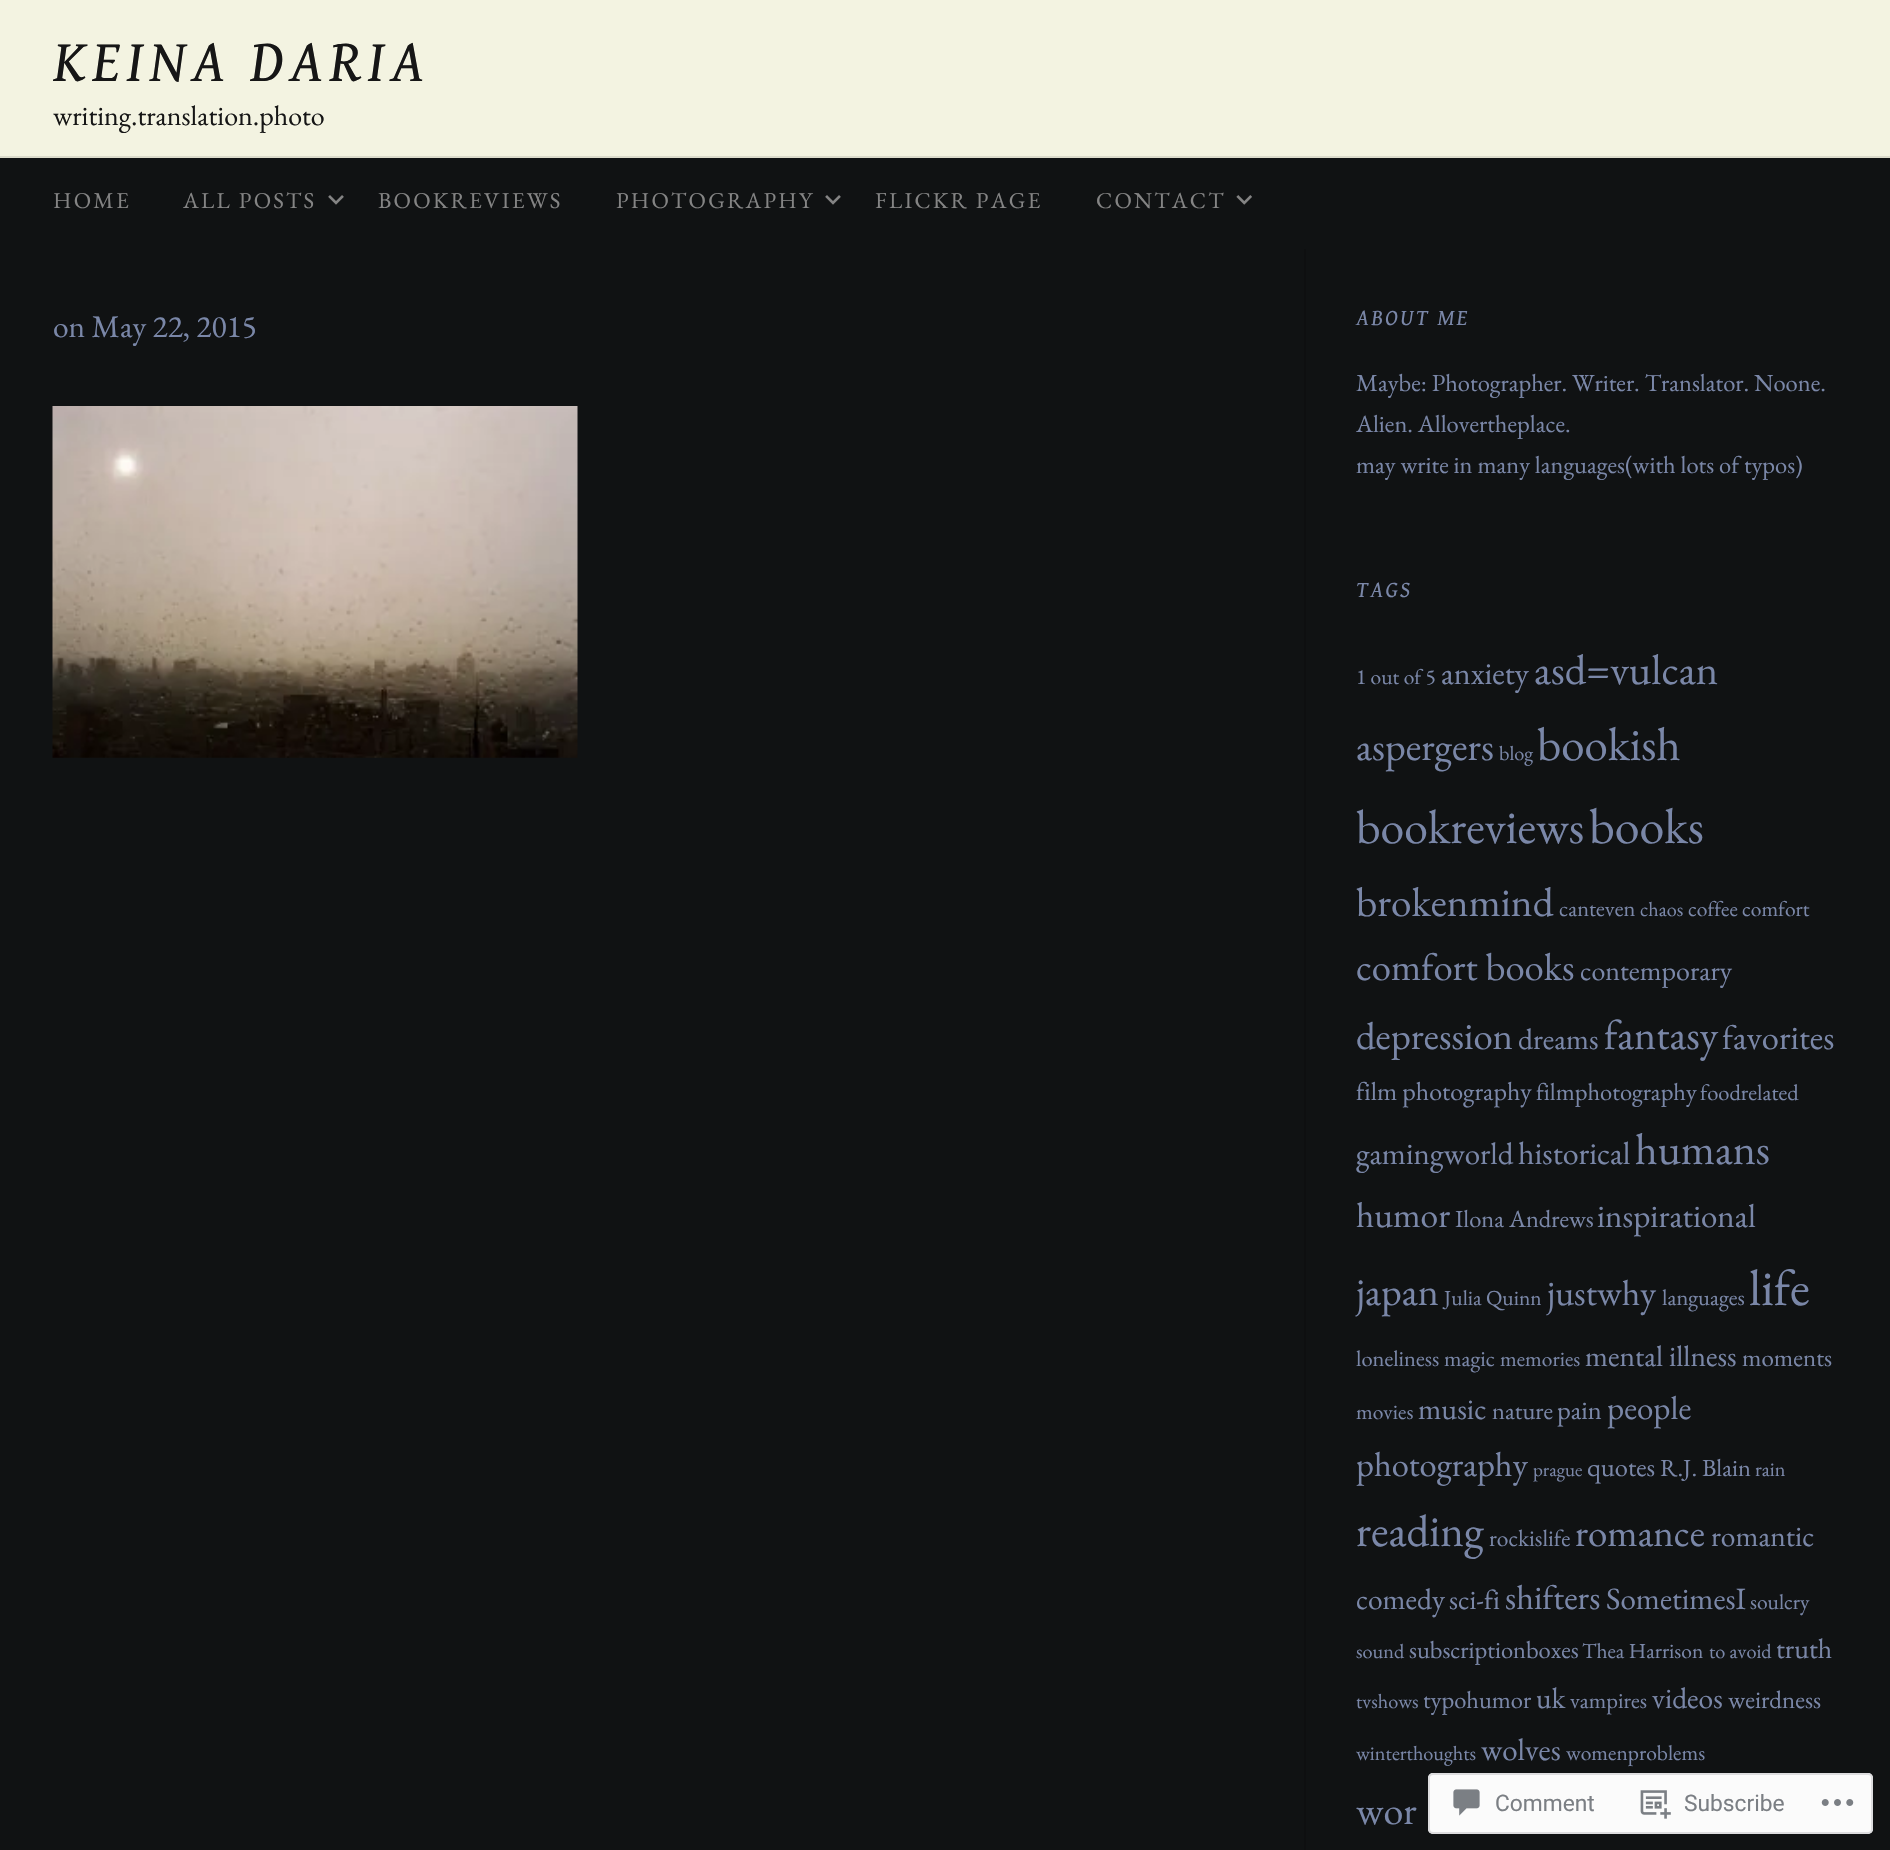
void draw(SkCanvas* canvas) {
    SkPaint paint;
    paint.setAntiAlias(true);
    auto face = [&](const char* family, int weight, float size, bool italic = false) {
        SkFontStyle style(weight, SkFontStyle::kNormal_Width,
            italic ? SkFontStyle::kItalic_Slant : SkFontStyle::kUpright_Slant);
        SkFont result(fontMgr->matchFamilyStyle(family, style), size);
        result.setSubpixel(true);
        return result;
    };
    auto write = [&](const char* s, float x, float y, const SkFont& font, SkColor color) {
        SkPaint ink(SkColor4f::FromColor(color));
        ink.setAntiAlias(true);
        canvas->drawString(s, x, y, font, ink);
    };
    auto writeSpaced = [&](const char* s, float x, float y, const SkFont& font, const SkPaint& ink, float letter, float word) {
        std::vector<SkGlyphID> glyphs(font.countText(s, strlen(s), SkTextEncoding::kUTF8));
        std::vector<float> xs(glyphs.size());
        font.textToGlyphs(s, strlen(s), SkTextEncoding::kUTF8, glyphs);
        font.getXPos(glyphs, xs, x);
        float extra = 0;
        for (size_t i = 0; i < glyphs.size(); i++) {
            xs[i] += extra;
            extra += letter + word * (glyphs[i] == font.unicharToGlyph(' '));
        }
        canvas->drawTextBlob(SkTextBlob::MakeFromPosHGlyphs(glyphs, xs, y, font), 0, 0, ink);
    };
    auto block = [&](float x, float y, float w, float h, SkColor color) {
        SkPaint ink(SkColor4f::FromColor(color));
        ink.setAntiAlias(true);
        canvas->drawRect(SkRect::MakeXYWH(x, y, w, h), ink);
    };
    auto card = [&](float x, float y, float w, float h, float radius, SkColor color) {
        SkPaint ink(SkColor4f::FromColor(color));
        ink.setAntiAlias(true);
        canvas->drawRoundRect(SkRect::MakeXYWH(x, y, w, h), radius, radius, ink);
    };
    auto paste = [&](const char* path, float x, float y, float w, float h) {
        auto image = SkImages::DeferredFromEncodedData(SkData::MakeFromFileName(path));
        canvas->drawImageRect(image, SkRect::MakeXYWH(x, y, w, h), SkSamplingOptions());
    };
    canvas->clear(SkColorSetRGB(16, 18, 19));
    block(0, 0, 1890, 156, SkColorSetRGB(243, 243, 225));
    block(0, 156, 1890, 2, SkColorSetRGB(219, 219, 203));
    auto kFont1 = face("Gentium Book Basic", 400, 59.5f, true);
    paint.setColor(SkColorSetRGB(22, 22, 22));
    writeSpaced("KEINA DARIA", 53, 81, kFont1, paint, 6, 0);
    auto kFont2 = face("EB Garamond", 400, 28);
    write("writing.translation.photo", 53, 125, kFont2, SkColorSetRGB(22, 22, 22));
    auto kFont3 = face("EB Garamond", 400, 22.75f);
    paint.setColor(SkColorSetRGB(132, 132, 132));
    writeSpaced("HOME", 53, 208, kFont3, paint, 2.25f, 0);
    writeSpaced("ALL POSTS", 183, 208, kFont3, paint, 2.25f, 0);
    paste("pic1.png", 328, 195, 16, 10);
    writeSpaced("BOOKREVIEWS", 378, 208, kFont3, paint, 2.25f, 0);
    writeSpaced("PHOTOGRAPHY", 616, 208, kFont3, paint, 2.25f, 0);
    paste("pic1.png", 825, 195, 16, 10);
    writeSpaced("FLICKR PAGE", 875, 208, kFont3, paint, 2.25f, 0);
    writeSpaced("CONTACT", 1096, 208, kFont3, paint, 2.25f, 0);
    paste("pic2.png", 1236, 195, 16, 10);
    auto kFont4 = face("EB Garamond", 400, 31.5f);
    write("on May 22, 2015", 53, 337, kFont4, SkColorSetRGB(122, 135, 168));
    paste("pic3.png", 52, 406, 526, 352);
    block(1304, 249, 2, 1601, SkColorSetRGB(14, 15, 16));
    auto kFont5 = face("Gentium Book Basic", 400, 22.75f, true);
    paint.setColor(SkColorSetRGB(122, 135, 168));
    writeSpaced("ABOUT ME", 1356, 325, kFont5, paint, 2.25f, 0);
    auto kFont6 = face("EB Garamond", 400, 24.5f);
    write("Maybe: Photographer. Writer. Translator. Noone.", 1356, 391, kFont6, SkColorSetRGB(122, 135, 168));
    write("Alien. Allovertheplace.", 1356, 432, kFont6, SkColorSetRGB(122, 135, 168));
    write("may write in many languages(with lots of typos)", 1356, 473, kFont6, SkColorSetRGB(122, 135, 168));
    writeSpaced("TAGS", 1356, 597, kFont5, paint, 2.25f, 0);
    auto kFont7 = face("EB Garamond", 400, 21.5f);
    write("1 out of 5", 1356, 684, kFont7, SkColorSetRGB(122, 135, 168));
    auto kFont8 = face("EB Garamond", 400, 32);
    write("anxiety", 1441, 684, kFont8, SkColorSetRGB(122, 135, 168));
    auto kFont9 = face("EB Garamond", 400, 42.5f);
    write("asd=vulcan", 1534, 684, kFont9, SkColorSetRGB(122, 135, 168));
    auto kFont10 = face("EB Garamond", 400, 40);
    write("aspergers", 1356, 760, kFont10, SkColorSetRGB(122, 135, 168));
    auto kFont11 = face("EB Garamond", 400, 20.25f);
    write("blog", 1499, 760, kFont11, SkColorSetRGB(122, 135, 168));
    auto kFont12 = face("EB Garamond", 400, 47);
    write("bookish", 1537, 760, kFont12, SkColorSetRGB(122, 135, 168));
    auto kFont13 = face("EB Garamond", 400, 47.75f);
    write("bookreviews", 1356, 843, kFont13, SkColorSetRGB(122, 135, 168));
    auto kFont14 = face("EB Garamond", 400, 50);
    write("books", 1589, 843, kFont14, SkColorSetRGB(122, 135, 168));
    auto kFont15 = face("EB Garamond", 400, 41.25f);
    write("brokenmind", 1356, 916, kFont15, SkColorSetRGB(122, 135, 168));
    auto kFont16 = face("EB Garamond", 400, 22.5f);
    write("canteven", 1559, 916, kFont16, SkColorSetRGB(122, 135, 168));
    write("chaos", 1640, 916, kFont11, SkColorSetRGB(122, 135, 168));
    write("coffee", 1688, 916, kFont7, SkColorSetRGB(122, 135, 168));
    write("comfort", 1742, 916, kFont7, SkColorSetRGB(122, 135, 168));
    auto kFont17 = face("EB Garamond", 400, 38.75f);
    write("comfort books", 1356, 980, kFont17, SkColorSetRGB(122, 135, 168));
    write("contemporary", 1580, 980, kFont2, SkColorSetRGB(122, 135, 168));
    write("depression", 1356, 1049, kFont17, SkColorSetRGB(122, 135, 168));
    auto kFont18 = face("EB Garamond", 400, 29.5f);
    write("dreams", 1518, 1049, kFont18, SkColorSetRGB(122, 135, 168));
    auto kFont19 = face("EB Garamond", 400, 42);
    write("fantasy", 1604, 1049, kFont19, SkColorSetRGB(122, 135, 168));
    auto kFont20 = face("EB Garamond", 400, 34.5f);
    write("favorites", 1722, 1049, kFont20, SkColorSetRGB(122, 135, 168));
    auto kFont21 = face("EB Garamond", 400, 26);
    write("film photography", 1356, 1100, kFont21, SkColorSetRGB(122, 135, 168));
    write("filmphotography", 1536, 1100, kFont6, SkColorSetRGB(122, 135, 168));
    write("foodrelated", 1700, 1100, kFont16, SkColorSetRGB(122, 135, 168));
    auto kFont22 = face("EB Garamond", 400, 31);
    write("gamingworld", 1356, 1164, kFont22, SkColorSetRGB(122, 135, 168));
    write("historical", 1518, 1164, kFont8, SkColorSetRGB(122, 135, 168));
    auto kFont23 = face("EB Garamond", 400, 44);
    write("humans", 1635, 1164, kFont23, SkColorSetRGB(122, 135, 168));
    auto kFont24 = face("EB Garamond", 400, 35.5f);
    write("humor", 1356, 1227, kFont24, SkColorSetRGB(122, 135, 168));
    write("Ilona Andrews", 1455, 1227, kFont6, SkColorSetRGB(122, 135, 168));
    auto kFont25 = face("EB Garamond", 400, 33);
    write("inspirational", 1597, 1227, kFont25, SkColorSetRGB(122, 135, 168));
    write("japan", 1356, 1305, kFont10, SkColorSetRGB(122, 135, 168));
    write("Julia Quinn", 1444, 1305, kFont7, SkColorSetRGB(122, 135, 168));
    auto kFont26 = face("EB Garamond", 400, 36);
    write("justwhy", 1547, 1305, kFont26, SkColorSetRGB(122, 135, 168));
    write("languages", 1662, 1305, kFont16, SkColorSetRGB(122, 135, 168));
    auto kFont27 = face("EB Garamond", 400, 51);
    write("life", 1749, 1305, kFont27, SkColorSetRGB(122, 135, 168));
    write("loneliness", 1356, 1366, kFont16, SkColorSetRGB(122, 135, 168));
    write("magic", 1444, 1366, kFont16, SkColorSetRGB(122, 135, 168));
    write("memories", 1500, 1366, kFont7, SkColorSetRGB(122, 135, 168));
    write("mental illness", 1585, 1366, kFont18, SkColorSetRGB(122, 135, 168));
    auto kFont28 = face("EB Garamond", 400, 25);
    write("moments", 1742, 1366, kFont28, SkColorSetRGB(122, 135, 168));
    write("movies", 1356, 1419, kFont7, SkColorSetRGB(122, 135, 168));
    auto kFont29 = face("EB Garamond", 400, 30);
    write("music", 1418, 1419, kFont29, SkColorSetRGB(122, 135, 168));
    write("nature", 1492, 1419, kFont6, SkColorSetRGB(122, 135, 168));
    auto kFont30 = face("EB Garamond", 400, 26.5f);
    write("pain", 1557, 1419, kFont30, SkColorSetRGB(122, 135, 168));
    write("people", 1607, 1419, kFont25, SkColorSetRGB(122, 135, 168));
    write("photography", 1356, 1476, kFont20, SkColorSetRGB(122, 135, 168));
    auto kFont31 = face("EB Garamond", 400, 19);
    write("prague", 1533, 1476, kFont31, SkColorSetRGB(122, 135, 168));
    write("quotes", 1587, 1476, kFont30, SkColorSetRGB(122, 135, 168));
    write("R.J. Blain", 1660, 1476, kFont6, SkColorSetRGB(122, 135, 168));
    write("rain", 1755, 1476, kFont11, SkColorSetRGB(122, 135, 168));
    auto kFont32 = face("EB Garamond", 400, 45);
    write("reading", 1356, 1546, kFont32, SkColorSetRGB(122, 135, 168));
    auto kFont33 = face("EB Garamond", 400, 23.5f);
    write("rockislife", 1489, 1546, kFont33, SkColorSetRGB(122, 135, 168));
    auto kFont34 = face("EB Garamond", 400, 39);
    write("romance", 1575, 1546, kFont34, SkColorSetRGB(122, 135, 168));
    write("romantic", 1711, 1546, kFont18, SkColorSetRGB(122, 135, 168));
    write("comedy", 1356, 1609, kFont18, SkColorSetRGB(122, 135, 168));
    write("sci-fi", 1449, 1609, kFont2, SkColorSetRGB(122, 135, 168));
    write("shifters", 1505, 1609, kFont20, SkColorSetRGB(122, 135, 168));
    write("SometimesI", 1606, 1609, kFont22, SkColorSetRGB(122, 135, 168));
    write("soulcry", 1750, 1609, kFont7, SkColorSetRGB(122, 135, 168));
    write("sound", 1356, 1658, kFont11, SkColorSetRGB(122, 135, 168));
    write("subscriptionboxes", 1409, 1658, kFont6, SkColorSetRGB(122, 135, 168));
    write("Thea Harrison", 1582, 1658, kFont7, SkColorSetRGB(122, 135, 168));
    write("to avoid", 1709, 1658, kFont11, SkColorSetRGB(122, 135, 168));
    write("truth", 1776, 1658, kFont2, SkColorSetRGB(122, 135, 168));
    write("tvshows", 1356, 1708, kFont11, SkColorSetRGB(122, 135, 168));
    write("typohumor", 1423, 1708, kFont6, SkColorSetRGB(122, 135, 168));
    write("uk", 1536, 1708, kFont18, SkColorSetRGB(122, 135, 168));
    write("vampires", 1570, 1708, kFont16, SkColorSetRGB(122, 135, 168));
    write("videos", 1652, 1708, kFont18, SkColorSetRGB(122, 135, 168));
    write("weirdness", 1728, 1708, kFont28, SkColorSetRGB(122, 135, 168));
    write("winterthoughts", 1356, 1760, kFont11, SkColorSetRGB(122, 135, 168));
    write("wolves", 1481, 1760, kFont22, SkColorSetRGB(122, 135, 168));
    write("womenproblems", 1566, 1760, kFont7, SkColorSetRGB(122, 135, 168));
    write("wor", 1356, 1824, kFont10, SkColorSetRGB(122, 135, 168));
    card(1428, 1773, 445, 61, 5, SkColorSetARGB(250, 255, 255, 255));
    paint.setStyle(SkPaint::kStroke_Style);
    paint.setStrokeWidth(2);
    paint.setColor(SkColorSetARGB(250, 220, 220, 222));
    canvas->drawRoundRect(SkRect::MakeXYWH(1429, 1774, 443, 59), 4, 4, paint);
    paste("pic4.png", 1453, 1789, 27, 27);
    auto kFont35 = face("Roboto", 400, 22.75f);
    write("Comment", 1495, 1811, kFont35, SkColorSetRGB(123, 127, 132));
    paste("pic5.png", 1640, 1790, 31, 29);
    write("Subscribe", 1684, 1811, kFont35, SkColorSetRGB(123, 127, 132));
    paste("pic6.png", 1821, 1799, 33, 7);
}
